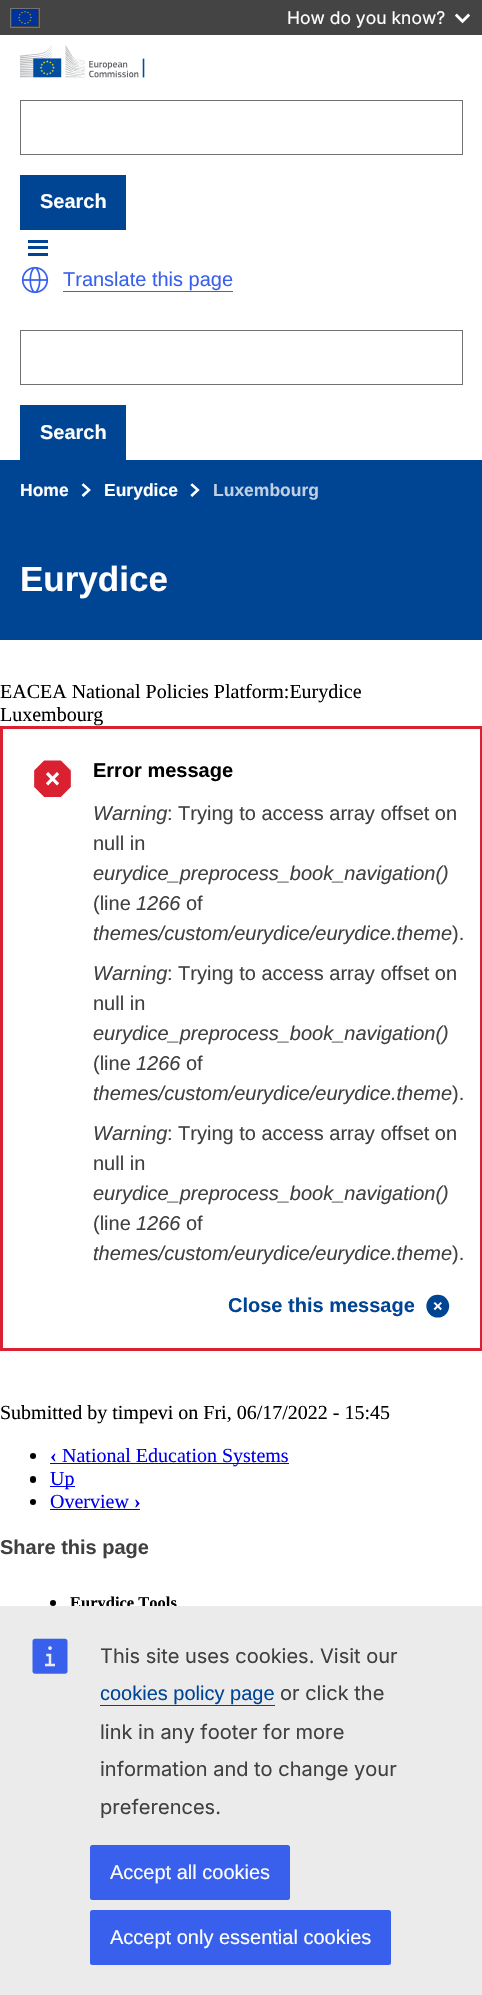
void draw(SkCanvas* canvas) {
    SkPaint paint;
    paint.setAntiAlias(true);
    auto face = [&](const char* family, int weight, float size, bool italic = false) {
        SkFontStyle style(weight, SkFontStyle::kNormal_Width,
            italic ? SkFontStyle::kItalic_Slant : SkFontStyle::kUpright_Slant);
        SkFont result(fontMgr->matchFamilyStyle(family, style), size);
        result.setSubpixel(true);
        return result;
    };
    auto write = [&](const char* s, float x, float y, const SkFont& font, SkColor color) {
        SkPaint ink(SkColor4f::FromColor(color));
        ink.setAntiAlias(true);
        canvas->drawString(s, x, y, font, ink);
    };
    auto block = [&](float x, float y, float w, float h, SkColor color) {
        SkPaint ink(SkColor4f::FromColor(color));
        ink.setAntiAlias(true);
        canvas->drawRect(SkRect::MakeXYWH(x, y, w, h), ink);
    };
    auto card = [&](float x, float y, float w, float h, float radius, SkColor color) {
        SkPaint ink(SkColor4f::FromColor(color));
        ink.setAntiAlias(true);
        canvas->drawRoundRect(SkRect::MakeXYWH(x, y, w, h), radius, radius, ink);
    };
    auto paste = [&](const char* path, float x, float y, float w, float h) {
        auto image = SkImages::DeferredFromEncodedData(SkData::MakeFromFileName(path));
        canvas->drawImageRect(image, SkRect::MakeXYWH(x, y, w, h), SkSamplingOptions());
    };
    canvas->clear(SK_ColorWHITE);
    block(0, 0, 482, 35, SkColorSetRGB(68, 68, 68));
    paint.setStyle(SkPaint::kStroke_Style);
    paint.setStrokeWidth(1);
    paint.setColor(SkColorSetRGB(115, 115, 115));
    canvas->drawRect(SkRect::MakeXYWH(10.5f, 8.5f, 29, 19), paint);
    paste("pic1.png", 12, 9, 26, 17);
    auto kFont1 = face("Inter", 400, 17.5f);
    write("How do you know?", 287, 24, kFont1, SK_ColorWHITE);
    paste("pic2.png", 455, 13, 15, 11);
    paste("pic3.png", 20, 45, 125, 33);
    paint.setColor(SkColorSetRGB(112, 112, 112));
    canvas->drawRect(SkRect::MakeXYWH(20.5f, 100.5f, 442, 54), paint);
    block(20, 175, 106, 55, SkColorSetRGB(0, 68, 148));
    auto kFont2 = face("Liberation Sans", 700, 20);
    write("Search", 40, 208, kFont2, SK_ColorWHITE);
    block(28, 240, 20, 3, SkColorSetRGB(0, 69, 148));
    block(28, 246, 20, 3, SkColorSetRGB(0, 69, 148));
    block(28, 253, 20, 3, SkColorSetRGB(0, 69, 148));
    paste("pic4.png", 21, 266, 28, 28);
    auto kFont3 = face("Liberation Sans", 400, 20);
    write("Translate this page", 63, 286, kFont3, SkColorSetRGB(56, 96, 237));
    block(63, 291, 170, 1, SkColorSetRGB(56, 96, 237));
    canvas->drawRect(SkRect::MakeXYWH(20.5f, 330.5f, 442, 54), paint);
    block(20, 405, 106, 55, SkColorSetRGB(0, 68, 148));
    write("Search", 40, 439, kFont2, SK_ColorWHITE);
    block(0, 460, 482, 180, SkColorSetRGB(0, 68, 148));
    auto kFont4 = face("Liberation Sans", 700, 17.5f);
    write("Home", 20, 496, kFont4, SK_ColorWHITE);
    paste("pic5.png", 81, 483, 10, 14);
    write("Eurydice", 104, 496, kFont4, SK_ColorWHITE);
    paste("pic6.png", 190, 483, 10, 14);
    write("Luxembourg", 213, 496, kFont4, SkColorSetRGB(191, 208, 228));
    auto kFont5 = face("Liberation Sans", 700, 35);
    write("Eurydice", 20, 591, kFont5, SK_ColorWHITE);
    auto kFont6 = face("Liberation Serif", 400, 20);
    write("EACEA National Policies Platform:Eurydice", 0, 698, kFont6, SK_ColorBLACK);
    write("Luxembourg", 0, 721, kFont6, SK_ColorBLACK);
    paint.setStrokeWidth(3);
    paint.setColor(SkColorSetRGB(218, 33, 49));
    canvas->drawRect(SkRect::MakeXYWH(1.5f, 727.5f, 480, 622), paint);
    paste("pic7.png", 34, 760, 37, 37);
    write("Error message", 93, 777, kFont2, SK_ColorBLACK);
    auto kFont7 = face("Liberation Sans", 400, 20, true);
    write("Warning", 93, 820, kFont7, SkColorSetRGB(64, 64, 64));
    write(": Trying to access array offset on", 167, 820, kFont3, SkColorSetRGB(64, 64, 64));
    write("null in", 93, 850, kFont3, SkColorSetRGB(64, 64, 64));
    write("eurydice_preprocess_book_navigation()", 93, 880, kFont7, SkColorSetRGB(64, 64, 64));
    write("(line", 93, 910, kFont3, SkColorSetRGB(64, 64, 64));
    write("1266", 136, 910, kFont7, SkColorSetRGB(64, 64, 64));
    write("of", 186, 910, kFont3, SkColorSetRGB(64, 64, 64));
    write("themes/custom/eurydice/eurydice.theme", 93, 940, kFont7, SkColorSetRGB(64, 64, 64));
    write(").", 452, 940, kFont3, SkColorSetRGB(64, 64, 64));
    write("Warning", 93, 980, kFont7, SkColorSetRGB(64, 64, 64));
    write(": Trying to access array offset on", 167, 980, kFont3, SkColorSetRGB(64, 64, 64));
    write("null in", 93, 1010, kFont3, SkColorSetRGB(64, 64, 64));
    write("eurydice_preprocess_book_navigation()", 93, 1040, kFont7, SkColorSetRGB(64, 64, 64));
    write("(line", 93, 1070, kFont3, SkColorSetRGB(64, 64, 64));
    write("1266", 136, 1070, kFont7, SkColorSetRGB(64, 64, 64));
    write("of", 186, 1070, kFont3, SkColorSetRGB(64, 64, 64));
    write("themes/custom/eurydice/eurydice.theme", 93, 1100, kFont7, SkColorSetRGB(64, 64, 64));
    write(").", 452, 1100, kFont3, SkColorSetRGB(64, 64, 64));
    write("Warning", 93, 1140, kFont7, SkColorSetRGB(64, 64, 64));
    write(": Trying to access array offset on", 167, 1140, kFont3, SkColorSetRGB(64, 64, 64));
    write("null in", 93, 1170, kFont3, SkColorSetRGB(64, 64, 64));
    write("eurydice_preprocess_book_navigation()", 93, 1200, kFont7, SkColorSetRGB(64, 64, 64));
    write("(line", 93, 1230, kFont3, SkColorSetRGB(64, 64, 64));
    write("1266", 136, 1230, kFont7, SkColorSetRGB(64, 64, 64));
    write("of", 186, 1230, kFont3, SkColorSetRGB(64, 64, 64));
    write("themes/custom/eurydice/eurydice.theme", 93, 1260, kFont7, SkColorSetRGB(64, 64, 64));
    write(").", 452, 1260, kFont3, SkColorSetRGB(64, 64, 64));
    write("Close this message", 228, 1312, kFont2, SkColorSetRGB(0, 68, 148));
    paste("pic8.png", 426, 1294, 24, 24);
    write("Submitted by timpevi on Fri, 06/17/2022 - 15:45", 0, 1419, kFont6, SK_ColorBLACK);
    paint.setStyle(SkPaint::kFill_Style);
    paint.setColor(SK_ColorBLACK);
    canvas->drawCircle(33, 1456, 3, paint);
    auto kFont8 = face("Liberation Serif", 700, 20);
    write("‹", 50, 1462, kFont8, SkColorSetRGB(0, 0, 238));
    block(50, 1463, 239, 1, SkColorSetRGB(0, 0, 238));
    write("National Education Systems", 62, 1462, kFont6, SkColorSetRGB(0, 0, 238));
    card(30, 1476, 6, 7, 3, SK_ColorBLACK);
    block(50, 1486, 25, 1, SkColorSetRGB(0, 0, 238));
    write("Up", 50, 1485, kFont6, SkColorSetRGB(0, 0, 238));
    canvas->drawCircle(33, 1502, 3, paint);
    write("Overview", 50, 1508, kFont6, SkColorSetRGB(0, 0, 238));
    write("›", 134, 1508, kFont8, SkColorSetRGB(0, 0, 238));
    block(50, 1509, 90, 1, SkColorSetRGB(0, 0, 238));
    write("Share this page", 0, 1554, kFont2, SkColorSetRGB(64, 64, 64));
    canvas->drawCircle(53, 1603, 3, paint);
    auto kFont9 = face("Liberation Serif", 700, 16.5f);
    write("Eurydice Tools", 70, 1608, kFont9, SK_ColorBLACK);
    block(0, 1606, 482, 389, SkColorSetRGB(235, 235, 235));
    paste("pic9.png", 32, 1638, 36, 36);
    auto kFont10 = face("Inter", 400, 20);
    write("This site uses cookies. Visit our", 100, 1663, kFont10, SkColorSetRGB(64, 64, 64));
    write("cookies policy page", 100, 1700, kFont3, SkColorSetRGB(0, 68, 148));
    block(100, 1705, 175, 1, SkColorSetRGB(0, 68, 148));
    write("or click the", 280, 1700, kFont10, SkColorSetRGB(64, 64, 64));
    write("link in any footer for more", 100, 1739, kFont10, SkColorSetRGB(64, 64, 64));
    write("information and to change your", 100, 1776, kFont10, SkColorSetRGB(64, 64, 64));
    write("preferences.", 100, 1814, kFont10, SkColorSetRGB(64, 64, 64));
    card(90, 1845, 200, 55, 2.5f, SkColorSetRGB(56, 96, 237));
    write("Accept all cookies", 110, 1879, kFont3, SK_ColorWHITE);
    card(90, 1910, 301, 55, 2.5f, SkColorSetRGB(56, 96, 237));
    write("Accept only essential cookies", 110, 1944, kFont3, SK_ColorWHITE);
}
